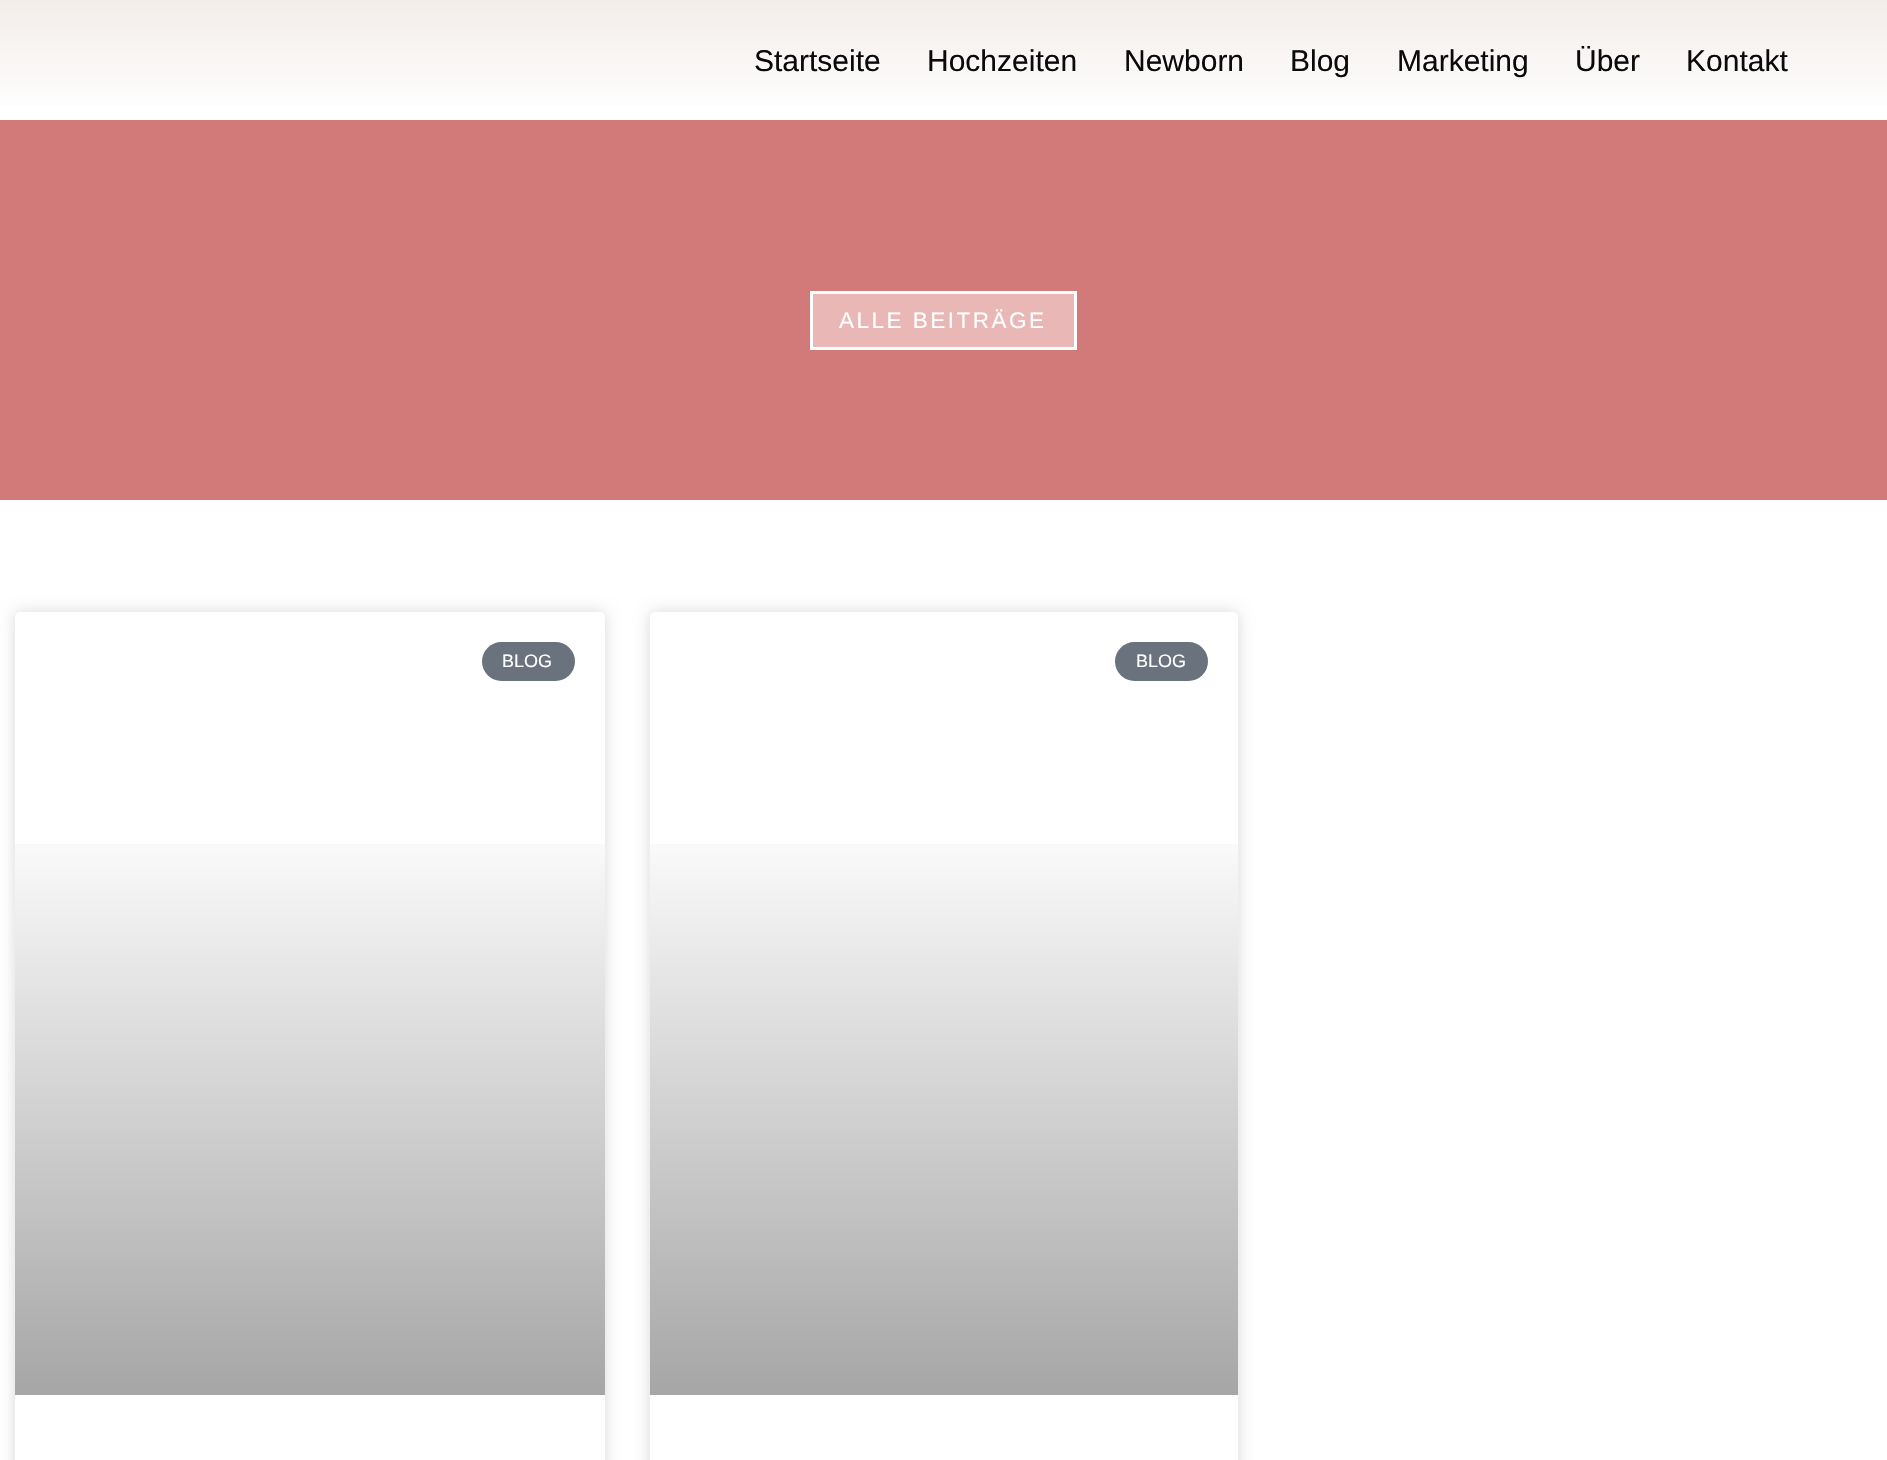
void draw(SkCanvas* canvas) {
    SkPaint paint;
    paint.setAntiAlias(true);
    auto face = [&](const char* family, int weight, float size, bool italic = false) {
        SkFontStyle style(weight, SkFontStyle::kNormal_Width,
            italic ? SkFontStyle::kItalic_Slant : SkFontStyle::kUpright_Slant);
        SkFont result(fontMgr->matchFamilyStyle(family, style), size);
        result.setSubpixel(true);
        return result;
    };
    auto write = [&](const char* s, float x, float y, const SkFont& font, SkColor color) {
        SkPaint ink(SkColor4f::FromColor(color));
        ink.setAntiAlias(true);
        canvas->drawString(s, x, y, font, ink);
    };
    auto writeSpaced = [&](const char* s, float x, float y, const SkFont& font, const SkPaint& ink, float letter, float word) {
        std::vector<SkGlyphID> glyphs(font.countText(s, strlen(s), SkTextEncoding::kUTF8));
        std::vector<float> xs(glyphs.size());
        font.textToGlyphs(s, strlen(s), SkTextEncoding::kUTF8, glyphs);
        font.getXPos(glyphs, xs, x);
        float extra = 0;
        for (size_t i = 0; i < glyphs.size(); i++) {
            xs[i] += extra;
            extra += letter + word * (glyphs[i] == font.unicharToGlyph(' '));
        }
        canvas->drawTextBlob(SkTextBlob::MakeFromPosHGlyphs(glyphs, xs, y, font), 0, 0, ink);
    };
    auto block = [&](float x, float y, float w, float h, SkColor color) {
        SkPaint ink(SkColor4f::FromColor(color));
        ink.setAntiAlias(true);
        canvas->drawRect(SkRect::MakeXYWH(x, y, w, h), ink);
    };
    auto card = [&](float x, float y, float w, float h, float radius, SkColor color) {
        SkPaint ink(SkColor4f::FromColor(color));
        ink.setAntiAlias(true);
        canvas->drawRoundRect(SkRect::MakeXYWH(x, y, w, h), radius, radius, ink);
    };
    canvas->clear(SK_ColorWHITE);
    {
        const SkColor colors[] = {SkColorSetRGB(243, 237, 234), SK_ColorWHITE};
        const float stops[] = {0, 1};
        const SkPoint ends[] = {{944, 0}, {944, 120}};
        paint.setShader(SkGradientShader::MakeLinear(ends, colors, stops, 2, SkTileMode::kClamp));
        paint.setAlpha(255);
    }
    canvas->drawRect(SkRect::MakeXYWH(0, 0, 1887, 106), paint);
    auto kFont1 = face("Liberation Sans", 400, 30);
    write("Startseite", 754, 71, kFont1, SkColorSetRGB(10, 10, 10));
    write("Hochzeiten", 927, 71, kFont1, SkColorSetRGB(10, 10, 10));
    write("Newborn", 1124, 71, kFont1, SkColorSetRGB(10, 10, 10));
    write("Blog", 1290, 71, kFont1, SkColorSetRGB(10, 10, 10));
    write("Marketing", 1397, 71, kFont1, SkColorSetRGB(10, 10, 10));
    write("Über", 1575, 71, kFont1, SkColorSetRGB(10, 10, 10));
    write("Kontakt", 1686, 71, kFont1, SkColorSetRGB(10, 10, 10));
    block(0, 120, 1887, 380, SkColorSetRGB(210, 122, 122));
    paint.setShader(nullptr);
    paint.setColor(SkColorSetRGB(234, 183, 183));
    canvas->drawRect(SkRect::MakeXYWH(811.5f, 292.5f, 264, 56), paint);
    paint.setStyle(SkPaint::kStroke_Style);
    paint.setStrokeWidth(3);
    paint.setColor(SK_ColorWHITE);
    canvas->drawRect(SkRect::MakeXYWH(811.5f, 292.5f, 264, 56), paint);
    auto kFont2 = face("Liberation Sans", 400, 22.5f);
    paint.setStyle(SkPaint::kFill_Style);
    writeSpaced("ALLE BEITRÄGE", 839, 328, kFont2, paint, 2.5f, 0);
    paint.setColor(SkColorSetARGB(38, 0, 0, 0));
    paint.setMaskFilter(SkMaskFilter::MakeBlur(kNormal_SkBlurStyle, 7.5f));
    canvas->drawRoundRect(SkRect::MakeXYWH(15, 612, 590, 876), 5, 5, paint);
    paint.setMaskFilter(nullptr);
    card(15, 612, 590, 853, 5, SK_ColorWHITE);
    card(482, 642, 93, 39, 19.5f, SkColorSetRGB(105, 114, 125));
    auto kFont3 = face("Liberation Sans", 400, 18);
    write("BLOG", 502, 667, kFont3, SK_ColorWHITE);
    {
        const SkColor colors[] = {SkColorSetARGB(89, 0, 0, 0), SkColorSetARGB(0, 0, 0, 0)};
        const float stops[] = {0, 0.75f};
        const SkPoint ends[] = {{310, 1395}, {310, 612}};
        paint.setShader(SkGradientShader::MakeLinear(ends, colors, stops, 2, SkTileMode::kClamp));
        paint.setAlpha(255);
    }
    canvas->drawRect(SkRect::MakeXYWH(15, 844, 590, 551), paint);
    paint.setShader(nullptr);
    paint.setColor(SkColorSetARGB(38, 0, 0, 0));
    paint.setMaskFilter(SkMaskFilter::MakeBlur(kNormal_SkBlurStyle, 7.5f));
    canvas->drawRoundRect(SkRect::MakeXYWH(650, 612, 588, 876), 5, 5, paint);
    paint.setMaskFilter(nullptr);
    card(650, 612, 588, 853, 5, SK_ColorWHITE);
    card(1115, 642, 93, 39, 19.5f, SkColorSetRGB(105, 114, 125));
    write("BLOG", 1136, 667, kFont3, SK_ColorWHITE);
    {
        const SkColor colors[] = {SkColorSetARGB(89, 0, 0, 0), SkColorSetARGB(0, 0, 0, 0)};
        const float stops[] = {0, 0.75f};
        const SkPoint ends[] = {{944, 1395}, {944, 612}};
        paint.setShader(SkGradientShader::MakeLinear(ends, colors, stops, 2, SkTileMode::kClamp));
        paint.setAlpha(255);
    }
    canvas->drawRect(SkRect::MakeXYWH(650, 844, 588, 551), paint);
}
